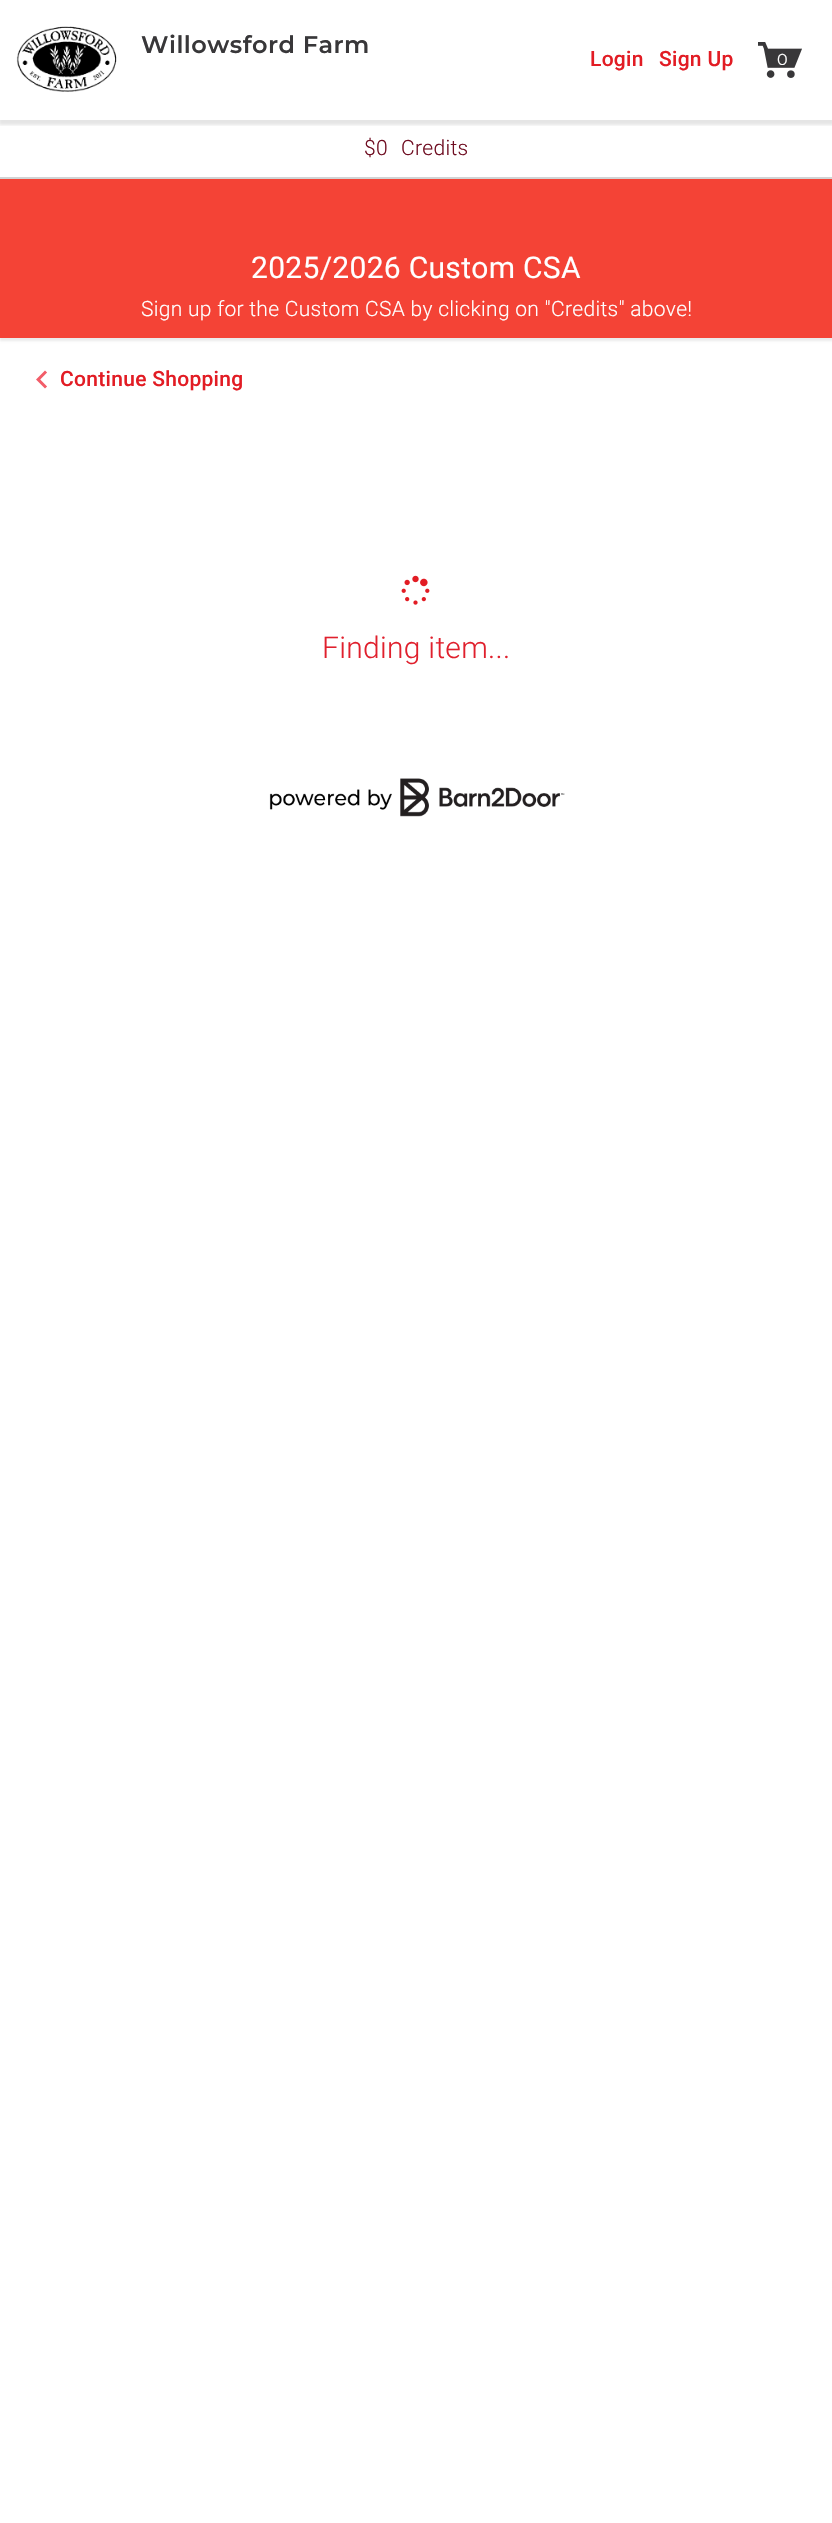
void draw(SkCanvas* canvas) {
    SkPaint paint;
    paint.setAntiAlias(true);
    auto face = [&](const char* family, int weight, float size, bool italic = false) {
        SkFontStyle style(weight, SkFontStyle::kNormal_Width,
            italic ? SkFontStyle::kItalic_Slant : SkFontStyle::kUpright_Slant);
        SkFont result(fontMgr->matchFamilyStyle(family, style), size);
        result.setSubpixel(true);
        return result;
    };
    auto writeSpaced = [&](const char* s, float x, float y, const SkFont& font, const SkPaint& ink, float letter, float word) {
        std::vector<SkGlyphID> glyphs(font.countText(s, strlen(s), SkTextEncoding::kUTF8));
        std::vector<float> xs(glyphs.size());
        font.textToGlyphs(s, strlen(s), SkTextEncoding::kUTF8, glyphs);
        font.getXPos(glyphs, xs, x);
        float extra = 0;
        for (size_t i = 0; i < glyphs.size(); i++) {
            xs[i] += extra;
            extra += letter + word * (glyphs[i] == font.unicharToGlyph(' '));
        }
        canvas->drawTextBlob(SkTextBlob::MakeFromPosHGlyphs(glyphs, xs, y, font), 0, 0, ink);
    };
    auto block = [&](float x, float y, float w, float h, SkColor color) {
        SkPaint ink(SkColor4f::FromColor(color));
        ink.setAntiAlias(true);
        canvas->drawRect(SkRect::MakeXYWH(x, y, w, h), ink);
    };
    auto paste = [&](const char* path, float x, float y, float w, float h) {
        auto image = SkImages::DeferredFromEncodedData(SkData::MakeFromFileName(path));
        canvas->drawImageRect(image, SkRect::MakeXYWH(x, y, w, h), SkSamplingOptions());
    };
    canvas->clear(SK_ColorWHITE);
    canvas->save();
    canvas->clipRect(SkRect::MakeXYWH(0, 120, 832, 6));
    paint.setColor(SkColorSetARGB(26, 0, 0, 0));
    paint.setMaskFilter(SkMaskFilter::MakeBlur(kNormal_SkBlurStyle, 1.5f));
    canvas->drawRect(SkRect::MakeXYWH(-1, 2, 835, 123), paint);
    paint.setMaskFilter(nullptr);
    canvas->restore();
    paste("pic1.png", 16, 26, 101, 66);
    auto kFont1 = face("Montserrat", 600, 24);
    paint.setColor(SkColorSetRGB(56, 55, 57));
    writeSpaced("Willowsford Farm", 141, 53, kFont1, paint, 0.5f, 0);
    auto kFont2 = face("Roboto", 500, 21);
    paint.setColor(SkColorSetRGB(226, 28, 36));
    writeSpaced("Login", 590, 66, kFont2, paint, 0.3f, 0);
    writeSpaced("Sign Up", 659, 66, kFont2, paint, 0.3f, 0);
    paste("pic2.png", 758, 42, 44, 36);
    auto kFont3 = face("Montserrat", 400, 16);
    paint.setColor(SK_ColorWHITE);
    writeSpaced("0", 777, 65, kFont3, paint, 2, 0);
    paint.setColor(SkColorSetARGB(20, 0, 0, 0));
    paint.setMaskFilter(SkMaskFilter::MakeBlur(kNormal_SkBlurStyle, 1));
    canvas->drawRect(SkRect::MakeXYWH(0, 182, 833, 159), paint);
    paint.setMaskFilter(nullptr);
    block(0, 177, 832, 2, SkColorSetRGB(209, 211, 212));
    auto kFont4 = face("Roboto", 300, 21);
    paint.setColor(SkColorSetRGB(111, 13, 33));
    writeSpaced("$0", 364, 155, kFont4, paint, 0.3f, 0);
    writeSpaced("Credits", 401, 155, kFont4, paint, 0.3f, 0);
    block(0, 179, 832, 159, SkColorSetRGB(244, 67, 54));
    auto kFont5 = face("Roboto", 400, 30);
    paint.setColor(SK_ColorWHITE);
    writeSpaced("2025/2026 Custom CSA", 251, 278, kFont5, paint, 0.3f, 0);
    writeSpaced("Sign up for the Custom CSA by clicking on \"Credits\" above!", 141, 316, kFont4, paint, 0.3f, 0);
    paste("pic3.png", 36, 370, 11, 19);
    paint.setColor(SkColorSetRGB(226, 28, 36));
    writeSpaced("Continue Shopping", 60, 386, kFont2, paint, 0.3f, 0);
    paste("pic4.png", 401, 575, 29, 30);
    auto kFont6 = face("Roboto", 300, 30);
    paint.setColor(SkColorSetRGB(224, 32, 45));
    writeSpaced("Finding item...", 322, 658, kFont6, paint, 0.3f, 0);
    paste("pic5.png", 269, 778, 296, 39);
}
